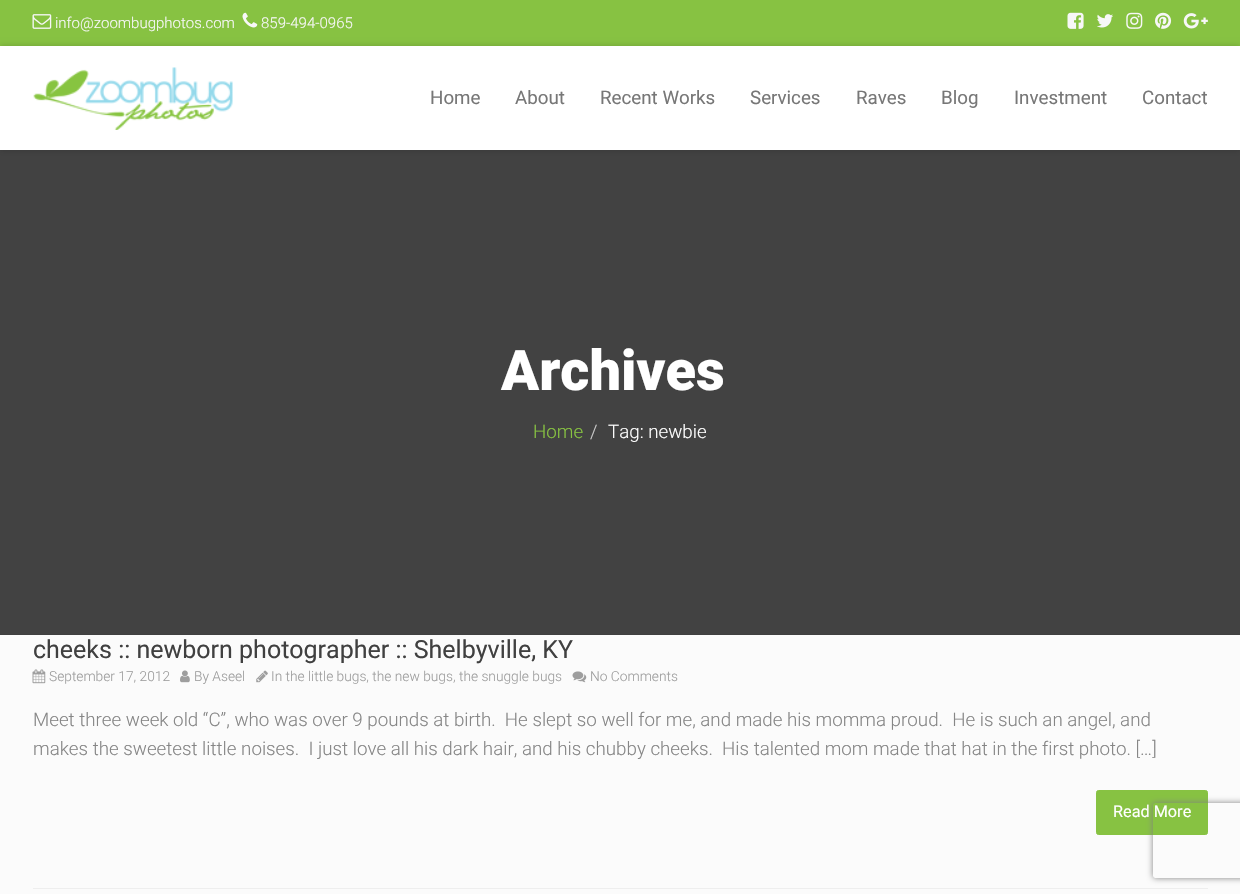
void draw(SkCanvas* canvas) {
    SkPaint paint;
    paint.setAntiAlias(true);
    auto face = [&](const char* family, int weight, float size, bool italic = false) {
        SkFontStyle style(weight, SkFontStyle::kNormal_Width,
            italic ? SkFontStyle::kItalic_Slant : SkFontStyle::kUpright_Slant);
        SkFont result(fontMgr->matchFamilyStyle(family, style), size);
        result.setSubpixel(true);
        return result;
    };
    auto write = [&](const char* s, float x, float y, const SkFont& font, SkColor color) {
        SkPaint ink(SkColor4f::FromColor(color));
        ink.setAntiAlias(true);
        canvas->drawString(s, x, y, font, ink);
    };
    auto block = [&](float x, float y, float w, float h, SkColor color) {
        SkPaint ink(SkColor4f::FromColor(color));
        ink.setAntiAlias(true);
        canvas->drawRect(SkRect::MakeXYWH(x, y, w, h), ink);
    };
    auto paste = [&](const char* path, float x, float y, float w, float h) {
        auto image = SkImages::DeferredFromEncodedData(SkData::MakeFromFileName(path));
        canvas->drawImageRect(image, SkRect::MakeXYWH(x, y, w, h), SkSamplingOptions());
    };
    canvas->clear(SkColorSetRGB(251, 251, 251));
    block(0, 0, 1240, 46, SkColorSetRGB(135, 194, 66));
    paste("pic1.png", 32, 14, 20, 15);
    auto kFont1 = face("Roboto", 300, 15);
    write("info@zoombugphotos.com", 55, 28, kFont1, SkColorSetRGB(247, 247, 247));
    paste("pic2.png", 242, 12, 16, 16);
    write("859-494-0965", 261, 28, kFont1, SkColorSetRGB(247, 247, 247));
    paste("pic3.png", 1067, 12, 17, 17);
    paste("pic4.png", 1097, 14, 16, 14);
    paste("pic5.png", 1126, 12, 17, 17);
    paste("pic6.png", 1155, 12, 17, 17);
    paste("pic7.png", 1183, 13, 25, 16);
    block(0, 150, 1240, 484, SkColorSetRGB(66, 66, 66));
    paint.setColor(SkColorSetARGB(48, 0, 0, 0));
    paint.setMaskFilter(SkMaskFilter::MakeBlur(kNormal_SkBlurStyle, 3));
    canvas->drawRect(SkRect::MakeXYWH(0, 46, 1240, 104), paint);
    paint.setMaskFilter(nullptr);
    block(0, 46, 1240, 104, SK_ColorWHITE);
    paste("pic8.png", 33, 67, 200, 63);
    auto kFont2 = face("Roboto", 400, 18.75f);
    write("Home", 430, 104, kFont2, SkColorSetRGB(119, 119, 119));
    write("About", 515, 104, kFont2, SkColorSetRGB(119, 119, 119));
    write("Recent Works", 600, 104, kFont2, SkColorSetRGB(119, 119, 119));
    write("Services", 750, 104, kFont2, SkColorSetRGB(119, 119, 119));
    write("Raves", 856, 104, kFont2, SkColorSetRGB(119, 119, 119));
    write("Blog", 941, 104, kFont2, SkColorSetRGB(119, 119, 119));
    write("Investment", 1014, 104, kFont2, SkColorSetRGB(119, 119, 119));
    write("Contact", 1142, 104, kFont2, SkColorSetRGB(119, 119, 119));
    block(0, 634, 1240, 1, SkColorSetRGB(64, 64, 64));
    auto kFont3 = face("Roboto", 900, 56);
    write("Archives", 501, 390, kFont3, SK_ColorWHITE);
    auto kFont4 = face("Roboto", 300, 18.75f);
    write("Home", 533, 438, kFont4, SkColorSetRGB(135, 194, 66));
    write("/", 590, 438, kFont4, SkColorSetRGB(204, 204, 204));
    write("Tag: newbie", 608, 438, kFont4, SK_ColorWHITE);
    block(33, 888, 1175, 1, SkColorSetRGB(238, 238, 238));
    auto kFont5 = face("Roboto", 400, 25);
    write("cheeks :: newborn photographer :: Shelbyville, KY", 33, 658, kFont5, SkColorSetRGB(64, 64, 64));
    paste("pic9.png", 32, 669, 14, 15);
    auto kFont6 = face("Roboto", 300, 13.75f);
    write("September 17, 2012", 49, 681, kFont6, SkColorSetRGB(157, 157, 157));
    paste("pic10.png", 180, 670, 10, 13);
    write("By Aseel", 194, 681, kFont6, SkColorSetRGB(157, 157, 157));
    paste("pic11.png", 256, 670, 12, 13);
    write("In the little bugs, the new bugs, the snuggle bugs", 271, 681, kFont6, SkColorSetRGB(157, 157, 157));
    paste("pic12.png", 572, 671, 15, 12);
    write("No Comments", 590, 681, kFont6, SkColorSetRGB(157, 157, 157));
    write("Meet three week old “C”, who was over 9 pounds at birth.  He slept so well for me, and made his momma proud.  He is such an angel, and", 33, 726, kFont4, SkColorSetRGB(134, 134, 134));
    write("makes the sweetest little noises.  I just love all his dark hair, and his chubby cheeks.  His talented mom made that hat in the first photo. […]", 33, 755, kFont4, SkColorSetRGB(134, 134, 134));
    paint.setColor(SkColorSetRGB(135, 194, 66));
    canvas->drawRoundRect(SkRect::MakeXYWH(1096.5f, 790.5f, 111, 44), 2, 2, paint);
    paint.setStyle(SkPaint::kStroke_Style);
    paint.setStrokeWidth(1);
    canvas->drawRoundRect(SkRect::MakeXYWH(1096.5f, 790.5f, 111, 44), 2, 2, paint);
    auto kFont7 = face("Roboto", 400, 16.25f);
    write("Read More", 1113, 817, kFont7, SK_ColorWHITE);
    canvas->save();
    canvas->clipPath(SkPathBuilder(SkPathFillType::kEvenOdd).moveTo(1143, 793).lineTo(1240, 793).lineTo(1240, 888).lineTo(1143, 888).close().moveTo(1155.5f, 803).lineTo(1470.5f, 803).cubicTo(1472, 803, 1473, 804, 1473, 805.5f).lineTo(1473, 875.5f).cubicTo(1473, 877, 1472, 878, 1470.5f, 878).lineTo(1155.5f, 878).cubicTo(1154, 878, 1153, 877, 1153, 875.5f).lineTo(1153, 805.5f).cubicTo(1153, 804, 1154, 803, 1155.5f, 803).close().detach(), true);
    paint.setStyle(SkPaint::kFill_Style);
    paint.setColor(SkColorSetRGB(128, 128, 128));
    paint.setMaskFilter(SkMaskFilter::MakeBlur(kNormal_SkBlurStyle, 3));
    canvas->drawRoundRect(SkRect::MakeXYWH(1153, 803, 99, 75), 2.5f, 2.5f, paint);
    paint.setMaskFilter(nullptr);
    canvas->restore();
}
